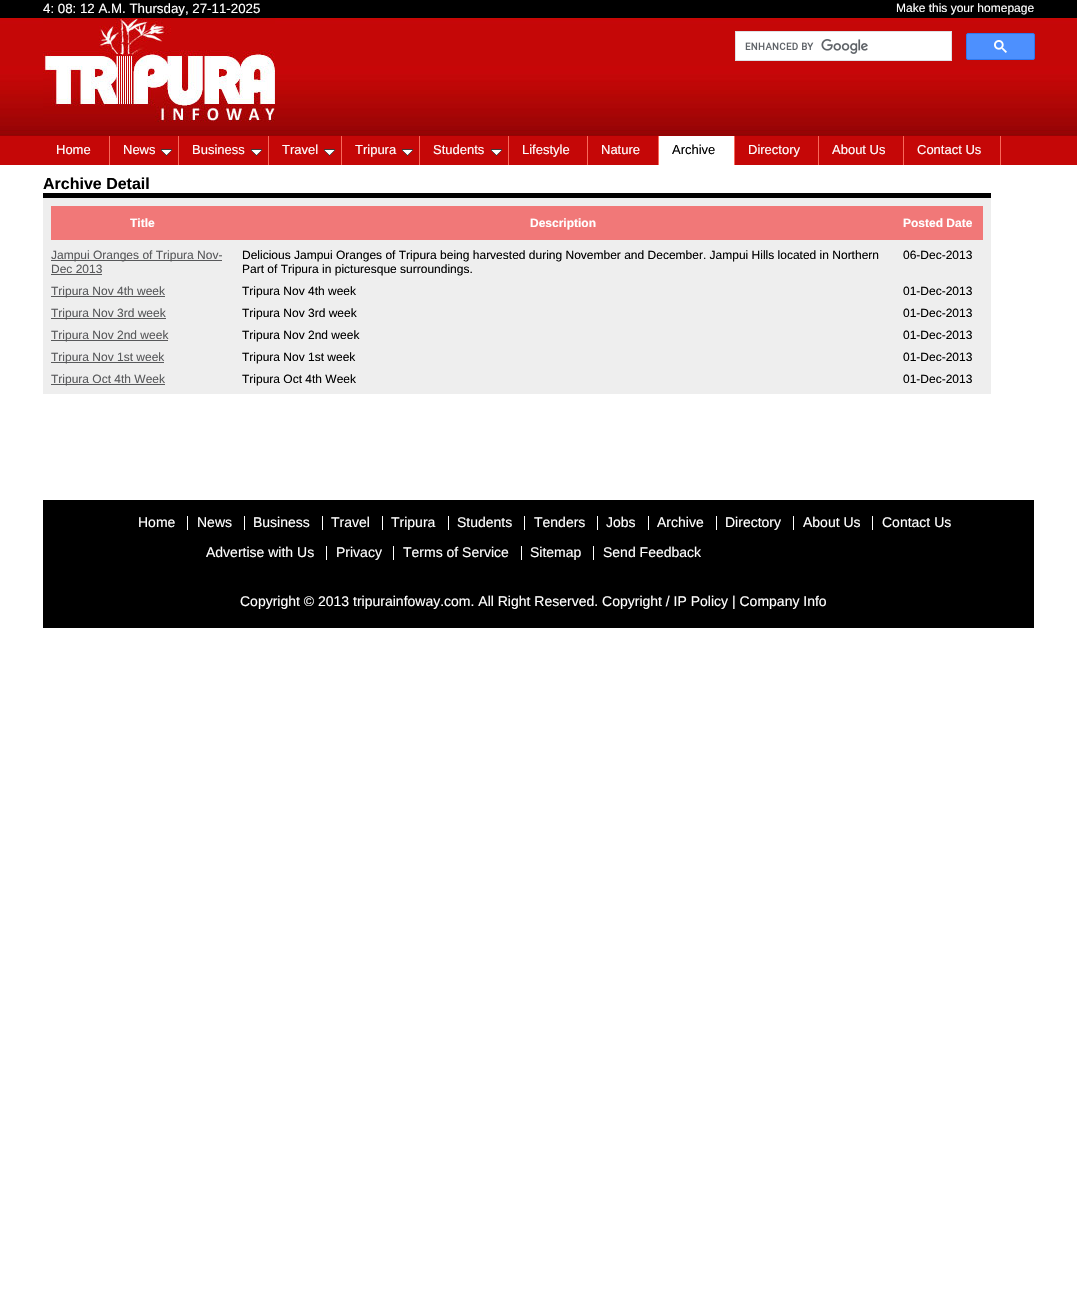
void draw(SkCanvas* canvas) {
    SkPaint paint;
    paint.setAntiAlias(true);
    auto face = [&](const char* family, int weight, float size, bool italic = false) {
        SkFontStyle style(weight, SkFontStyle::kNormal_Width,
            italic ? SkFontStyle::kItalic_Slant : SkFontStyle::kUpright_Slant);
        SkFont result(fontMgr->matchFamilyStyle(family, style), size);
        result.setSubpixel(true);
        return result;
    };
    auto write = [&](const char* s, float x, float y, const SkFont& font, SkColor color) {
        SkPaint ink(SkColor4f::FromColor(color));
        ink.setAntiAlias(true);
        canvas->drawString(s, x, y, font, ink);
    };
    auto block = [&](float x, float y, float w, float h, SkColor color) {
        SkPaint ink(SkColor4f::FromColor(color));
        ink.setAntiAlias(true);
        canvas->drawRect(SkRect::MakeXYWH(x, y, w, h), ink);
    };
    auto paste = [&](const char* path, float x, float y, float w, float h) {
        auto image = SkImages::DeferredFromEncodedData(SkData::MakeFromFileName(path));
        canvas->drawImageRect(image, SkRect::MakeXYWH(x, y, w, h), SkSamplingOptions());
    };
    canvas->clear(SK_ColorWHITE);
    block(0, 0, 1077, 18, SK_ColorBLACK);
    auto kFont1 = face("Liberation Sans", 400, 13.3f);
    write("4: 08: 12 A.M. Thursday, 27-11-2025", 43, 13, kFont1, SK_ColorWHITE);
    auto kFont2 = face("Liberation Sans", 400, 12);
    write("Make this your homepage", 896, 12, kFont2, SK_ColorWHITE);
    paste("pic1.png", 0, 18, 1077, 118);
    paste("pic2.png", 43, 18, 232, 104);
    paint.setColor(SK_ColorWHITE);
    canvas->drawRect(SkRect::MakeXYWH(735.5f, 31.5f, 216, 29), paint);
    paint.setStyle(SkPaint::kStroke_Style);
    paint.setStrokeWidth(1);
    paint.setColor(SkColorSetRGB(223, 225, 229));
    canvas->drawRect(SkRect::MakeXYWH(735.5f, 31.5f, 216, 29), paint);
    paste("pic3.png", 745, 39, 123, 15);
    paint.setStyle(SkPaint::kFill_Style);
    paint.setColor(SkColorSetRGB(77, 144, 254));
    canvas->drawRoundRect(SkRect::MakeXYWH(966.5f, 33.5f, 68, 26), 1.5f, 1.5f, paint);
    paint.setStyle(SkPaint::kStroke_Style);
    paint.setColor(SkColorSetRGB(48, 121, 237));
    canvas->drawRoundRect(SkRect::MakeXYWH(966.5f, 33.5f, 68, 26), 1.5f, 1.5f, paint);
    paste("pic4.png", 994, 40, 13, 13);
    block(0, 136, 1077, 29, SkColorSetRGB(197, 7, 7));
    block(109, 136, 1, 29, SkColorSetRGB(248, 105, 91));
    auto kFont3 = face("Liberation Sans", 400, 13);
    write("Home", 56, 154, kFont3, SK_ColorWHITE);
    block(178, 136, 1, 29, SkColorSetRGB(248, 105, 91));
    write("News", 123, 154, kFont3, SK_ColorWHITE);
    paste("pic5.png", 161, 149, 11, 7);
    block(268, 136, 1, 29, SkColorSetRGB(248, 105, 91));
    write("Business", 192, 154, kFont3, SK_ColorWHITE);
    paste("pic5.png", 251, 149, 11, 7);
    block(341, 136, 1, 29, SkColorSetRGB(248, 105, 91));
    write("Travel", 282, 154, kFont3, SK_ColorWHITE);
    paste("pic5.png", 324, 149, 11, 7);
    block(419, 136, 1, 29, SkColorSetRGB(248, 105, 91));
    write("Tripura", 355, 154, kFont3, SK_ColorWHITE);
    paste("pic5.png", 402, 149, 11, 7);
    block(508, 136, 1, 29, SkColorSetRGB(248, 105, 91));
    write("Students", 433, 154, kFont3, SK_ColorWHITE);
    paste("pic5.png", 491, 149, 11, 7);
    block(587, 136, 1, 29, SkColorSetRGB(248, 105, 91));
    write("Lifestyle", 522, 154, kFont3, SK_ColorWHITE);
    block(658, 136, 1, 29, SkColorSetRGB(248, 105, 91));
    write("Nature", 601, 154, kFont3, SK_ColorWHITE);
    block(659, 136, 75, 29, SK_ColorWHITE);
    block(734, 136, 1, 29, SkColorSetRGB(248, 105, 91));
    write("Archive", 672, 154, kFont3, SK_ColorBLACK);
    block(818, 136, 1, 29, SkColorSetRGB(248, 105, 91));
    write("Directory", 748, 154, kFont3, SK_ColorWHITE);
    block(903, 136, 1, 29, SkColorSetRGB(248, 105, 91));
    write("About Us", 832, 154, kFont3, SK_ColorWHITE);
    block(1000, 136, 1, 29, SkColorSetRGB(248, 105, 91));
    write("Contact Us", 917, 154, kFont3, SK_ColorWHITE);
    block(43, 193, 948, 5, SK_ColorBLACK);
    auto kFont4 = face("Liberation Sans", 700, 16);
    write("Archive Detail", 43, 189, kFont4, SK_ColorBLACK);
    block(43, 198, 948, 196, SkColorSetRGB(238, 238, 238));
    block(51, 206, 932, 34, SkColorSetRGB(241, 120, 120));
    auto kFont5 = face("Liberation Sans", 700, 12);
    write("Title", 130, 227, kFont5, SK_ColorWHITE);
    write("Description", 530, 227, kFont5, SK_ColorWHITE);
    write("Posted Date", 903, 227, kFont5, SK_ColorWHITE);
    block(51, 260, 171, 1, SkColorSetRGB(88, 89, 91));
    write("Jampui Oranges of Tripura Nov-", 51, 259, kFont2, SkColorSetRGB(88, 89, 91));
    write("Dec 2013", 51, 273, kFont2, SkColorSetRGB(88, 89, 91));
    block(51, 274, 51, 1, SkColorSetRGB(88, 89, 91));
    write("Delicious Jampui Oranges of Tripura being harvested during November and December. Jampui Hills located in Northern", 242, 259, kFont2, SK_ColorBLACK);
    write("Part of Tripura in picturesque surroundings.", 242, 273, kFont2, SK_ColorBLACK);
    write("06-Dec-2013", 903, 259, kFont2, SK_ColorBLACK);
    block(51, 296, 114, 1, SkColorSetRGB(88, 89, 91));
    write("Tripura Nov 4th week", 51, 295, kFont2, SkColorSetRGB(88, 89, 91));
    write("Tripura Nov 4th week", 242, 295, kFont2, SK_ColorBLACK);
    write("01-Dec-2013", 903, 295, kFont2, SK_ColorBLACK);
    block(51, 318, 115, 1, SkColorSetRGB(88, 89, 91));
    write("Tripura Nov 3rd week", 51, 317, kFont2, SkColorSetRGB(88, 89, 91));
    write("Tripura Nov 3rd week", 242, 317, kFont2, SK_ColorBLACK);
    write("01-Dec-2013", 903, 317, kFont2, SK_ColorBLACK);
    block(51, 340, 117, 1, SkColorSetRGB(88, 89, 91));
    write("Tripura Nov 2nd week", 51, 339, kFont2, SkColorSetRGB(88, 89, 91));
    write("Tripura Nov 2nd week", 242, 339, kFont2, SK_ColorBLACK);
    write("01-Dec-2013", 903, 339, kFont2, SK_ColorBLACK);
    block(51, 362, 113, 1, SkColorSetRGB(88, 89, 91));
    write("Tripura Nov 1st week", 51, 361, kFont2, SkColorSetRGB(88, 89, 91));
    write("Tripura Nov 1st week", 242, 361, kFont2, SK_ColorBLACK);
    write("01-Dec-2013", 903, 361, kFont2, SK_ColorBLACK);
    block(51, 384, 114, 1, SkColorSetRGB(88, 89, 91));
    write("Tripura Oct 4th Week", 51, 383, kFont2, SkColorSetRGB(88, 89, 91));
    write("Tripura Oct 4th Week", 242, 383, kFont2, SK_ColorBLACK);
    write("01-Dec-2013", 903, 383, kFont2, SK_ColorBLACK);
    block(43, 500, 991, 128, SK_ColorBLACK);
    auto kFont6 = face("Liberation Sans", 400, 14);
    write("Home", 138, 527, kFont6, SK_ColorWHITE);
    block(187, 516, 1, 14, SK_ColorWHITE);
    write("News", 197, 527, kFont6, SK_ColorWHITE);
    block(244, 516, 1, 14, SK_ColorWHITE);
    write("Business", 253, 527, kFont6, SK_ColorWHITE);
    block(322, 516, 1, 14, SK_ColorWHITE);
    write("Travel", 331, 527, kFont6, SK_ColorWHITE);
    block(382, 516, 1, 14, SK_ColorWHITE);
    write("Tripura", 391, 527, kFont6, SK_ColorWHITE);
    block(448, 516, 1, 14, SK_ColorWHITE);
    write("Students", 457, 527, kFont6, SK_ColorWHITE);
    block(524, 516, 1, 14, SK_ColorWHITE);
    write("Tenders", 534, 527, kFont6, SK_ColorWHITE);
    block(597, 516, 1, 14, SK_ColorWHITE);
    write("Jobs", 606, 527, kFont6, SK_ColorWHITE);
    block(648, 516, 1, 14, SK_ColorWHITE);
    write("Archive", 657, 527, kFont6, SK_ColorWHITE);
    block(716, 516, 1, 14, SK_ColorWHITE);
    write("Directory", 725, 527, kFont6, SK_ColorWHITE);
    block(793, 516, 1, 14, SK_ColorWHITE);
    write("About Us", 803, 527, kFont6, SK_ColorWHITE);
    block(872, 516, 1, 14, SK_ColorWHITE);
    write("Contact Us", 882, 527, kFont6, SK_ColorWHITE);
    write("Advertise with Us", 206, 557, kFont6, SK_ColorWHITE);
    block(326, 546, 1, 14, SK_ColorWHITE);
    write("Privacy", 336, 557, kFont6, SK_ColorWHITE);
    block(393, 546, 1, 14, SK_ColorWHITE);
    write("Terms of Service", 403, 557, kFont6, SK_ColorWHITE);
    block(521, 546, 1, 14, SK_ColorWHITE);
    write("Sitemap", 530, 557, kFont6, SK_ColorWHITE);
    block(593, 546, 1, 14, SK_ColorWHITE);
    write("Send Feedback", 603, 557, kFont6, SK_ColorWHITE);
    write("Copyright © 2013 tripurainfoway.com. All Right Reserved. Copyright / IP Policy | Company Info", 240, 606, kFont6, SK_ColorWHITE);
}
